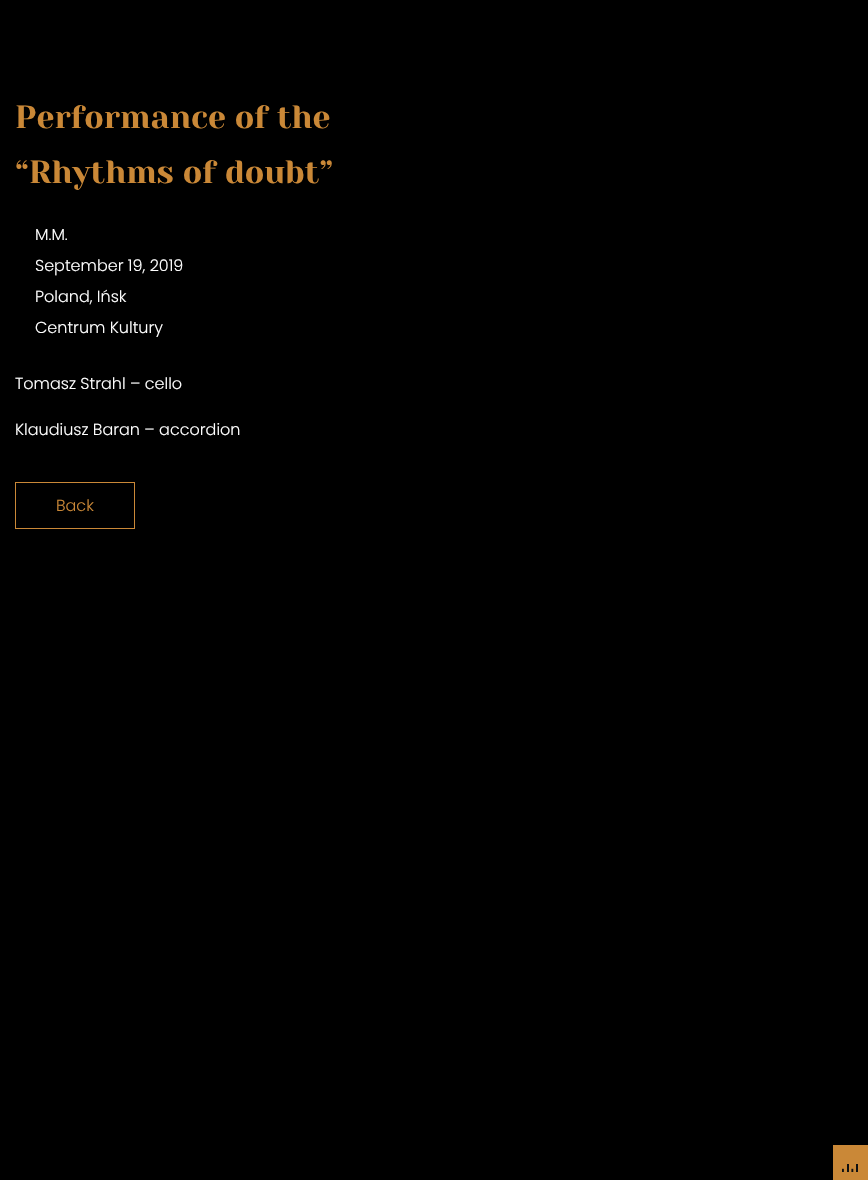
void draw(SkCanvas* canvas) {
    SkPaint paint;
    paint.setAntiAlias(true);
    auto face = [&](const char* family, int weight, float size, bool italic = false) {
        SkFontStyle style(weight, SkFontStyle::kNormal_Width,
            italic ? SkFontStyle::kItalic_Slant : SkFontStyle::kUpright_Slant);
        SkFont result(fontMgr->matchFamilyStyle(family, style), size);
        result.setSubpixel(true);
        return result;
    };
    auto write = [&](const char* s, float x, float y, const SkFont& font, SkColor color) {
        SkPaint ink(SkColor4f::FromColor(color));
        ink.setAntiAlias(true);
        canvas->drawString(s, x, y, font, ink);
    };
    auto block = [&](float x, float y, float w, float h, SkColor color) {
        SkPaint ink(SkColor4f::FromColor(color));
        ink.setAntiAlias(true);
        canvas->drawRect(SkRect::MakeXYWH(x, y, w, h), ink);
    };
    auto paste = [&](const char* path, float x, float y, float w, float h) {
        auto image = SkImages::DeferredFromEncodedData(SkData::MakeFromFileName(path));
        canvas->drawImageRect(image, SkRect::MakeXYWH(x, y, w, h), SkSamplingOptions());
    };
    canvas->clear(SK_ColorBLACK);
    auto kFont1 = face("Yeseva One", 400, 32);
    write("Performance of the", 15, 128, kFont1, SkColorSetRGB(202, 136, 55));
    write("“Rhythms of doubt”", 15, 183, kFont1, SkColorSetRGB(202, 136, 55));
    auto kFont2 = face("Poppins", 300, 16);
    write("M.M.", 35, 240, kFont2, SK_ColorWHITE);
    write("September 19, 2019", 35, 271, kFont2, SK_ColorWHITE);
    write("Poland, Ińsk", 35, 302, kFont2, SK_ColorWHITE);
    write("Centrum Kultury", 35, 333, kFont2, SK_ColorWHITE);
    write("Tomasz Strahl – cello", 15, 389, kFont2, SK_ColorWHITE);
    write("Klaudiusz Baran – accordion", 15, 435, kFont2, SK_ColorWHITE);
    paint.setStyle(SkPaint::kStroke_Style);
    paint.setStrokeWidth(1);
    paint.setColor(SkColorSetRGB(202, 136, 55));
    canvas->drawRect(SkRect::MakeXYWH(15.5f, 482.5f, 119, 46), paint);
    write("Back", 56, 511, kFont2, SkColorSetRGB(202, 136, 55));
    block(833, 1145, 35, 35, SkColorSetRGB(202, 136, 55));
    paste("pic1.png", 842, 1164, 16, 8);
}
